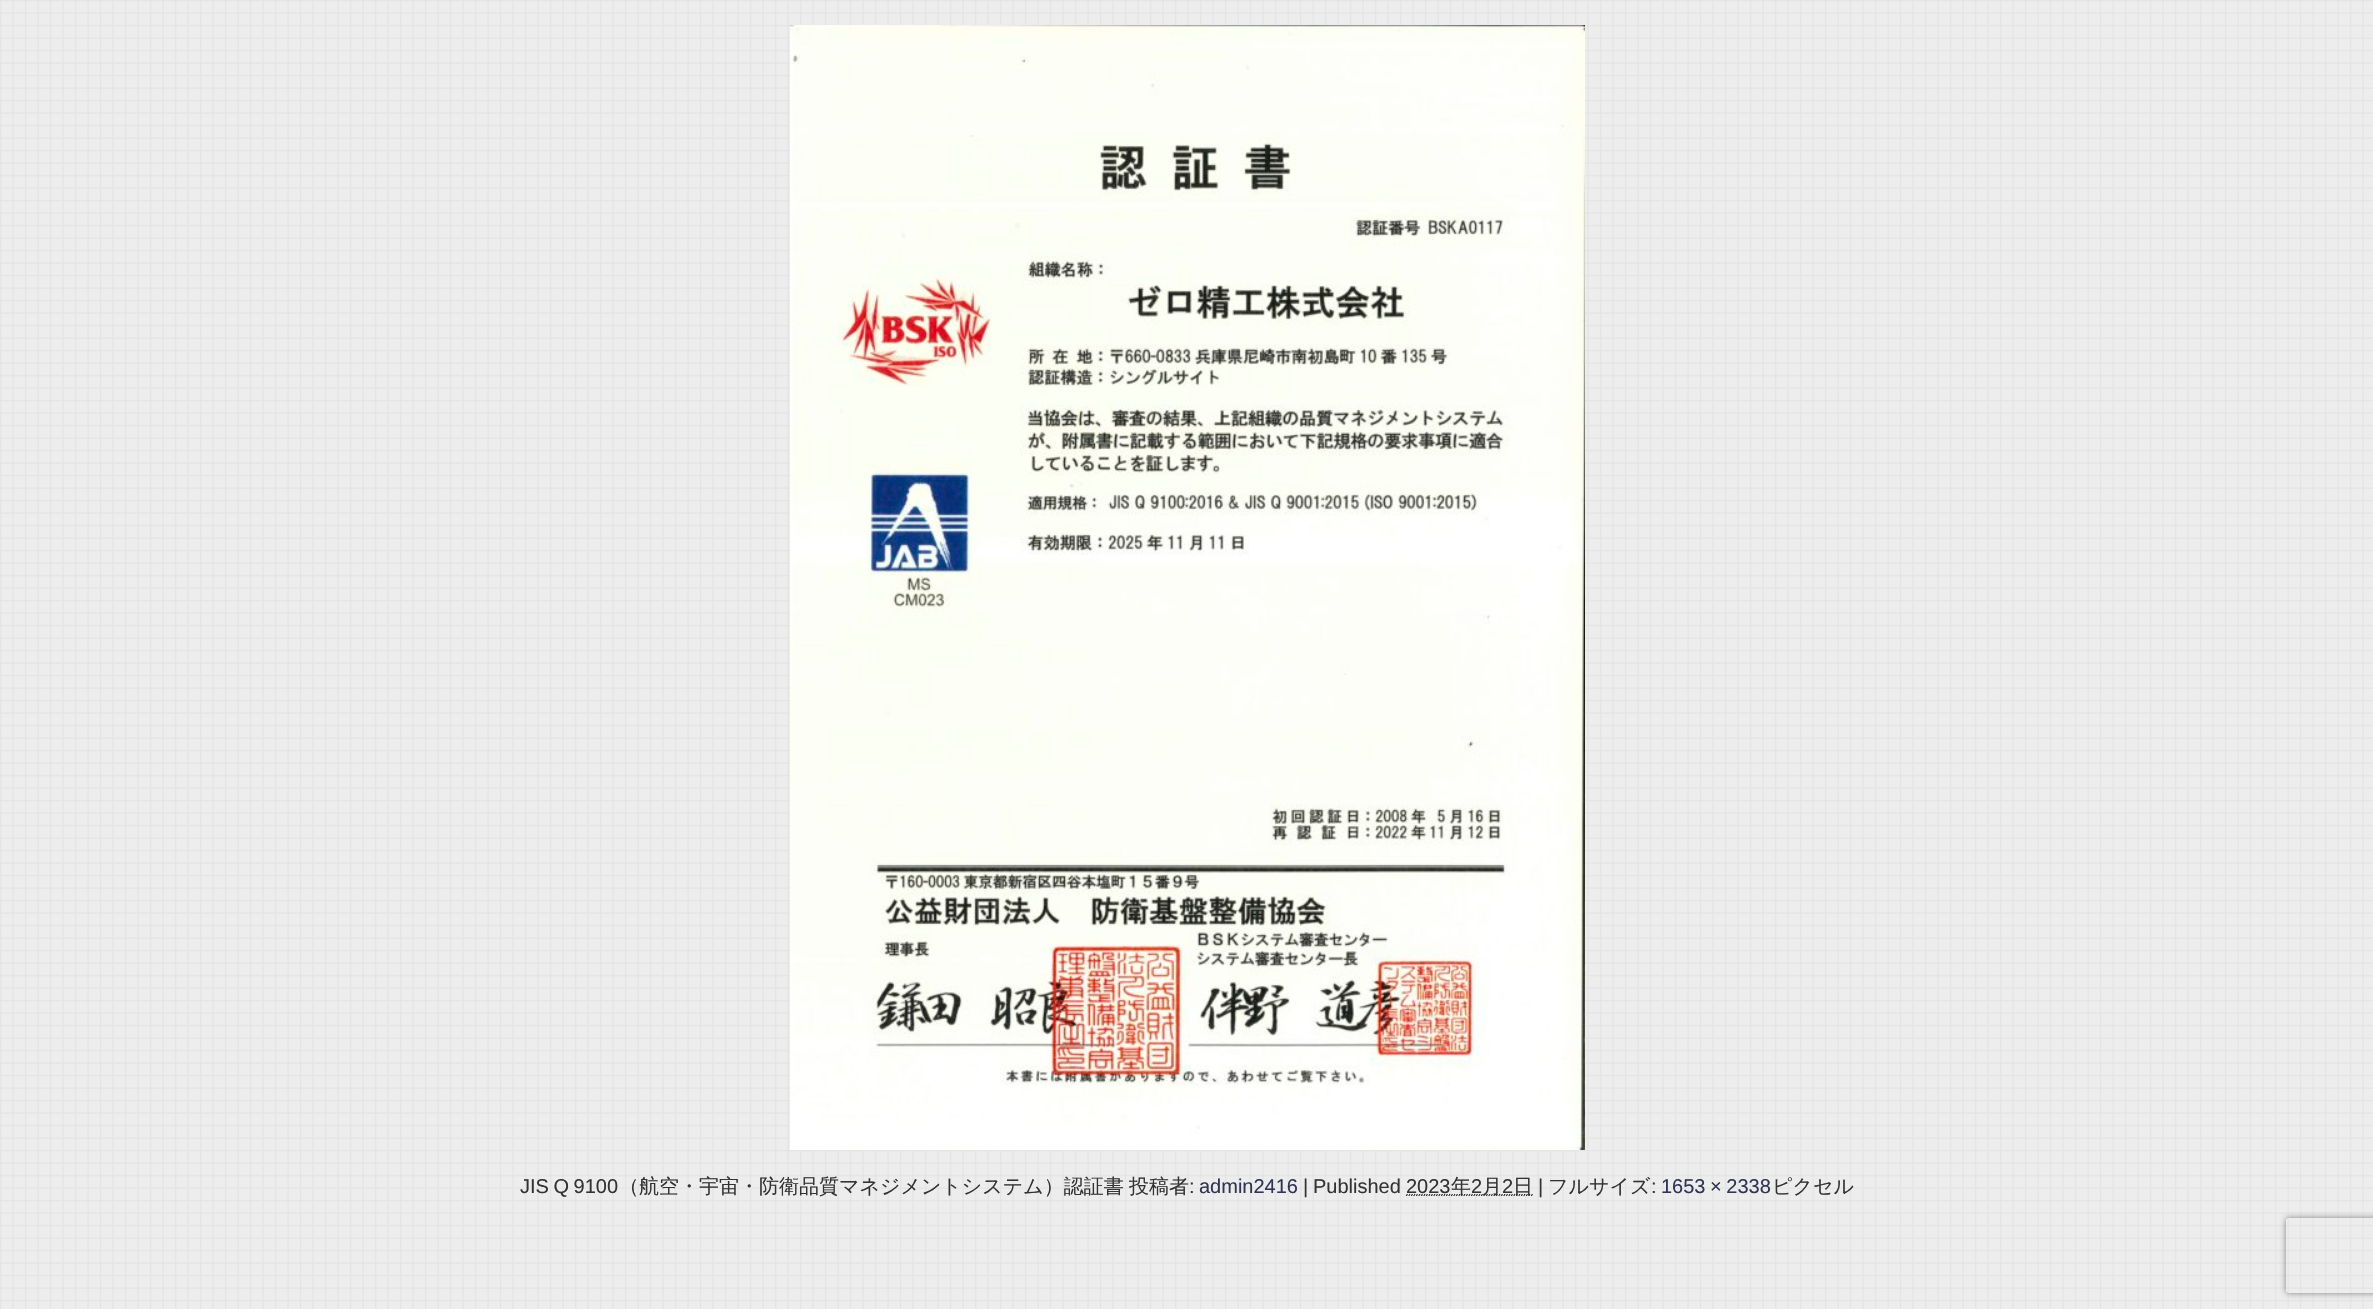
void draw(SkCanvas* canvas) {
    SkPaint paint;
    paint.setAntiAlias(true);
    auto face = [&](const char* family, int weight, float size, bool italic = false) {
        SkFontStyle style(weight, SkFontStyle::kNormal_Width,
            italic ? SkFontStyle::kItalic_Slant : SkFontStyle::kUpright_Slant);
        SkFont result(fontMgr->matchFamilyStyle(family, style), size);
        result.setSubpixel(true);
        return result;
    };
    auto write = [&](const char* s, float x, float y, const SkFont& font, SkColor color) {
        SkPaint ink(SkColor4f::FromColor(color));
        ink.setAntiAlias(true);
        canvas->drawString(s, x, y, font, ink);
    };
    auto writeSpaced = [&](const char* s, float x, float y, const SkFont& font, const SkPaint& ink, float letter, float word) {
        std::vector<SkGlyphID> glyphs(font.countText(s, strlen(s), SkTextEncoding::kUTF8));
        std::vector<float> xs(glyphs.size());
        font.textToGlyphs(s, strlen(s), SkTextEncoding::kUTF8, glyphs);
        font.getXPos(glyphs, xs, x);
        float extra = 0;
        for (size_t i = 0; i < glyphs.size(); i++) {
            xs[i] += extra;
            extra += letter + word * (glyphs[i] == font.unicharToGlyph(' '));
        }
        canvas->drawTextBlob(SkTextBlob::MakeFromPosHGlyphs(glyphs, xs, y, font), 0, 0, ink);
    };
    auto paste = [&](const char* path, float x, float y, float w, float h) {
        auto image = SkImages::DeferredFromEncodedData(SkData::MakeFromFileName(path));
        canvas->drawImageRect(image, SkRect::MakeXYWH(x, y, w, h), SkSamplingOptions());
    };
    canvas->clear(SK_ColorWHITE);
    paste("pic1.png", 0, 0, 2373, 1309);
    paste("pic2.png", 790, 25, 795, 1125);
    auto kFont1 = face("Liberation Sans", 400, 20);
    paint.setColor(SkColorSetRGB(51, 51, 51));
    writeSpaced("JIS Q 9100", 520, 1193, kFont1, paint, 0, -1);
    auto kFont2 = face("WenQuanYi Zen Hei", 500, 20);
    write("（航空・宇宙・防衛品質マネジメントシステム）認証書", 619, 1193, kFont2, SkColorSetRGB(51, 51, 51));
    write("投稿者", 1129, 1193, kFont2, SkColorSetRGB(51, 51, 51));
    write(":", 1189, 1193, kFont1, SkColorSetRGB(51, 51, 51));
    write("admin2416", 1199, 1193, kFont1, SkColorSetRGB(51, 51, 85));
    write("|", 1303, 1193, kFont1, SkColorSetRGB(51, 51, 51));
    write("Published", 1313, 1193, kFont1, SkColorSetRGB(51, 51, 51));
    paint.setStyle(SkPaint::kStroke_Style);
    paint.setStrokeWidth(1.2f);
    paint.setPathEffect(SkDashPathEffect::Make({{1.25f, 1.25f}}, 0));
    canvas->drawPath(SkPathBuilder().moveTo(1406, 1195.5f).lineTo(1532.5f, 1195.5f).detach(), paint);
    paint.setPathEffect(nullptr);
    paint.setPathEffect(SkDashPathEffect::Make({{1.25f, 1.25f}}, 0));
    canvas->drawPath(SkPathBuilder().moveTo(1406.5f, 1194.5f).lineTo(1533, 1194.5f).detach(), paint);
    paint.setPathEffect(nullptr);
    write("2023", 1406, 1193, kFont1, SkColorSetRGB(51, 51, 51));
    write("年", 1451, 1193, kFont2, SkColorSetRGB(51, 51, 51));
    write("2", 1471, 1193, kFont1, SkColorSetRGB(51, 51, 51));
    write("月", 1482, 1193, kFont2, SkColorSetRGB(51, 51, 51));
    write("2", 1502, 1193, kFont1, SkColorSetRGB(51, 51, 51));
    write("日", 1513, 1193, kFont2, SkColorSetRGB(51, 51, 51));
    write("|", 1538, 1193, kFont1, SkColorSetRGB(51, 51, 51));
    write("フルサイズ", 1548, 1193, kFont2, SkColorSetRGB(51, 51, 51));
    write(":", 1651, 1193, kFont1, SkColorSetRGB(51, 51, 51));
    paint.setStyle(SkPaint::kFill_Style);
    paint.setColor(SkColorSetRGB(51, 51, 85));
    writeSpaced("1653 × 2338", 1661, 1193, kFont1, paint, 0, -1);
    write("ピクセル", 1772, 1193, kFont2, SkColorSetRGB(51, 51, 51));
    canvas->save();
    canvas->clipPath(SkPathBuilder(SkPathFillType::kEvenOdd).moveTo(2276, 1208).lineTo(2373, 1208).lineTo(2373, 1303).lineTo(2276, 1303).close().moveTo(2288.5f, 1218).lineTo(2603.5f, 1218).cubicTo(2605, 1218, 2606, 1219, 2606, 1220.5f).lineTo(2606, 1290.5f).cubicTo(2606, 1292, 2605, 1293, 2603.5f, 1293).lineTo(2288.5f, 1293).cubicTo(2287, 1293, 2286, 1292, 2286, 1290.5f).lineTo(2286, 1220.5f).cubicTo(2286, 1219, 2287, 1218, 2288.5f, 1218).close().detach(), true);
    paint.setColor(SkColorSetRGB(128, 128, 128));
    paint.setMaskFilter(SkMaskFilter::MakeBlur(kNormal_SkBlurStyle, 3));
    canvas->drawRoundRect(SkRect::MakeXYWH(2286, 1218, 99, 75), 2.5f, 2.5f, paint);
    paint.setMaskFilter(nullptr);
    canvas->restore();
}
